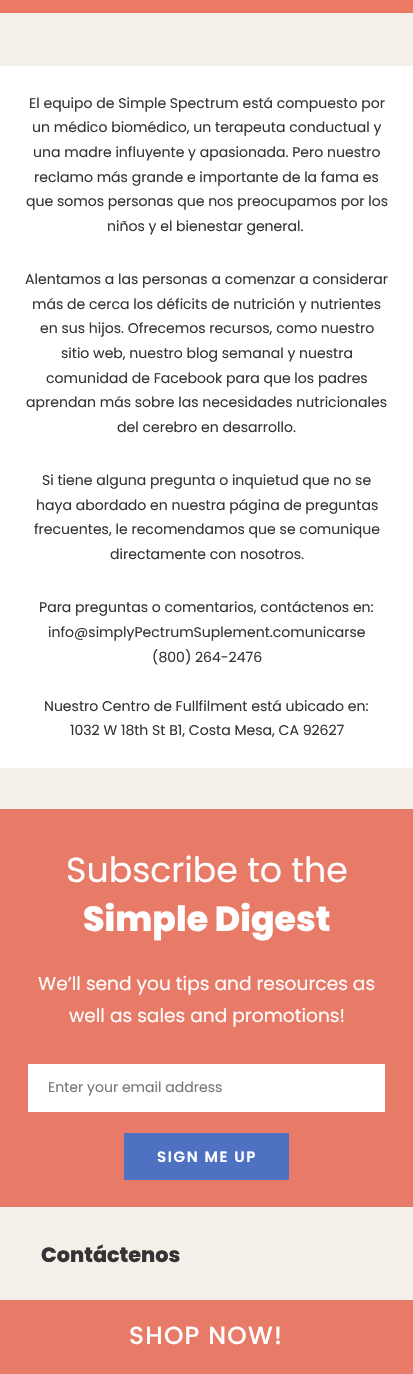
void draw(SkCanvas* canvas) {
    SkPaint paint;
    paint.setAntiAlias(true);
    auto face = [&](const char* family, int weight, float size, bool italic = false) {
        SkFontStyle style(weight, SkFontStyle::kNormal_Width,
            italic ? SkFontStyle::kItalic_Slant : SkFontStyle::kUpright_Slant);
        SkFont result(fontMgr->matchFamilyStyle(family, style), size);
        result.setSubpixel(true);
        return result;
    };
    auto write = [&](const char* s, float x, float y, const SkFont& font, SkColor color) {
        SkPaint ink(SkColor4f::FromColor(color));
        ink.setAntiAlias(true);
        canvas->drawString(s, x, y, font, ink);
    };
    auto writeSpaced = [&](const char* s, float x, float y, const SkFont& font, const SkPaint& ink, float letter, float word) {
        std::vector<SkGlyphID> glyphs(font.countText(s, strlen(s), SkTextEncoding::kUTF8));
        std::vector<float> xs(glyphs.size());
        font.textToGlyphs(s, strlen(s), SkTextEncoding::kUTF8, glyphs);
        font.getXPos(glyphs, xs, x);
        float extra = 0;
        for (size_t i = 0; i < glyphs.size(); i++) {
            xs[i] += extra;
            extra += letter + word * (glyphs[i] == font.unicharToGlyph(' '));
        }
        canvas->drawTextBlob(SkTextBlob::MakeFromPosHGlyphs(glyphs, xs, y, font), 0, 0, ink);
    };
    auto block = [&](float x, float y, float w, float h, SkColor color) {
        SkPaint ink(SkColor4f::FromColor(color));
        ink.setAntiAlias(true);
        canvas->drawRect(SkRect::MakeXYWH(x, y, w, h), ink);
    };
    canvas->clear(SkColorSetRGB(244, 239, 233));
    block(0, 0, 413, 13, SkColorSetRGB(234, 122, 100));
    block(0, 66, 413, 702, SK_ColorWHITE);
    auto kFont1 = face("Poppins", 400, 14.05f);
    write("El equipo de Simple Spectrum está compuesto por", 29, 108, kFont1, SkColorSetRGB(53, 51, 54));
    write("un médico biomédico, un terapeuta conductual y", 32, 132, kFont1, SkColorSetRGB(53, 51, 54));
    write("una madre influyente y apasionada. Pero nuestro", 33, 157, kFont1, SkColorSetRGB(53, 51, 54));
    write("reclamo más grande e importante de la fama es", 34, 182, kFont1, SkColorSetRGB(53, 51, 54));
    write("que somos personas que nos preocupamos por los", 26, 206, kFont1, SkColorSetRGB(53, 51, 54));
    write("niños y el bienestar general.", 107, 231, kFont1, SkColorSetRGB(53, 51, 54));
    write("Alentamos a las personas a comenzar a considerar", 25, 284, kFont1, SkColorSetRGB(53, 51, 54));
    write("más de cerca los déficits de nutrición y nutrientes", 32, 309, kFont1, SkColorSetRGB(53, 51, 54));
    write("en sus hijos. Ofrecemos recursos, como nuestro", 40, 333, kFont1, SkColorSetRGB(53, 51, 54));
    write("sitio web, nuestro blog semanal y nuestra", 61, 358, kFont1, SkColorSetRGB(53, 51, 54));
    write("comunidad de Facebook para que los padres", 46, 383, kFont1, SkColorSetRGB(53, 51, 54));
    write("aprendan más sobre las necesidades nutricionales", 26, 407, kFont1, SkColorSetRGB(53, 51, 54));
    write("del cerebro en desarrollo.", 117, 432, kFont1, SkColorSetRGB(53, 51, 54));
    write("Si tiene alguna pregunta o inquietud que no se", 42, 485, kFont1, SkColorSetRGB(53, 51, 54));
    write("haya abordado en nuestra página de preguntas", 36, 510, kFont1, SkColorSetRGB(53, 51, 54));
    write("frecuentes, le recomendamos que se comunique", 34, 534, kFont1, SkColorSetRGB(53, 51, 54));
    write("directamente con nosotros.", 110, 559, kFont1, SkColorSetRGB(53, 51, 54));
    write("Para preguntas o comentarios, contáctenos en:", 39, 612, kFont1, SkColorSetRGB(53, 51, 54));
    write("info@simplyPectrumSuplement.comunicarse", 48, 637, kFont1, SkColorSetRGB(53, 51, 54));
    write("(800) 264-2476", 152, 662, kFont1, SkColorSetRGB(53, 51, 54));
    write("Nuestro Centro de Fullfilment está ubicado en:", 44, 711, kFont1, SkColorSetRGB(53, 51, 54));
    write("1032 W 18th St B1, Costa Mesa, CA 92627", 70, 735, kFont1, SkColorSetRGB(53, 51, 54));
    block(0, 809, 413, 398, SkColorSetRGB(232, 122, 104));
    auto kFont2 = face("Poppins", 400, 34.75f);
    write("Subscribe to the", 66, 882, kFont2, SK_ColorWHITE);
    auto kFont3 = face("Poppins", 800, 34.75f);
    write("Simple Digest", 83, 931, kFont3, SK_ColorWHITE);
    auto kFont4 = face("Poppins", 400, 18.6f);
    write("We’ll send you tips and resources as", 38, 990, kFont4, SK_ColorWHITE);
    write("well as sales and promotions!", 69, 1022, kFont4, SK_ColorWHITE);
    block(28, 1064, 357, 48, SK_ColorWHITE);
    write("Enter your email address", 48, 1092, kFont1, SkColorSetRGB(117, 117, 117));
    block(124, 1133, 165, 47, SkColorSetRGB(78, 114, 193));
    auto kFont5 = face("Poppins", 600, 15);
    paint.setColor(SK_ColorWHITE);
    writeSpaced("SIGN ME UP", 157, 1162, kFont5, paint, 1.6f, 0);
    auto kFont6 = face("Poppins", 800, 20.75f);
    write("Contáctenos", 41, 1262, kFont6, SkColorSetRGB(53, 51, 54));
    block(0, 1300, 413, 74, SkColorSetRGB(232, 122, 104));
    auto kFont7 = face("Poppins", 500, 24.75f);
    writeSpaced("SHOP NOW!", 129, 1344, kFont7, paint, 1.25f, 0);
}
